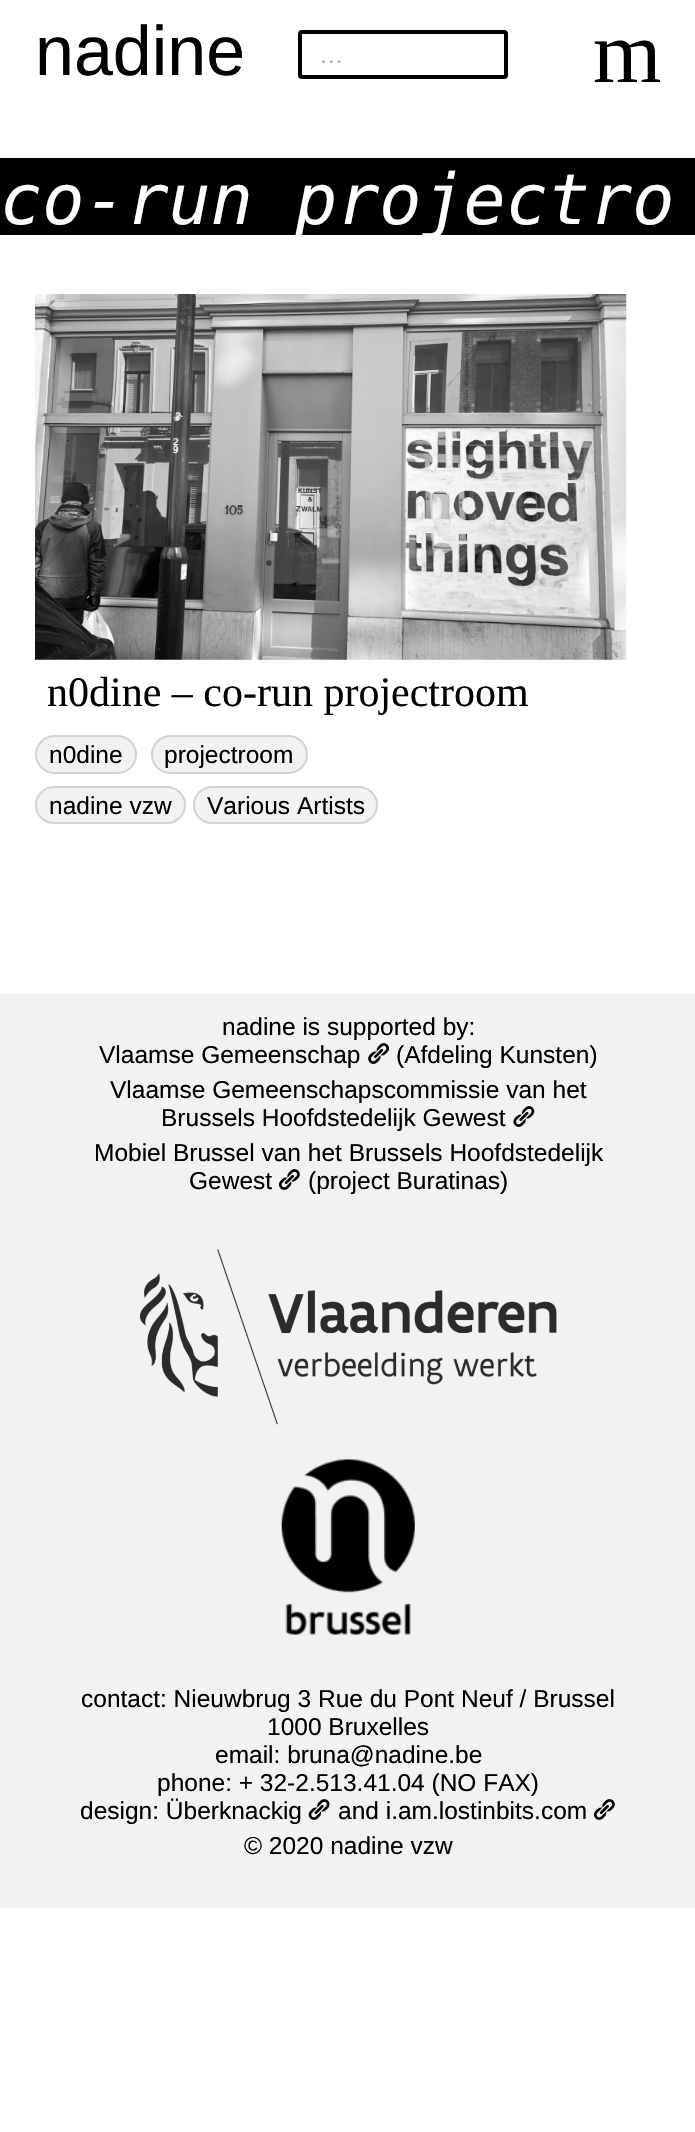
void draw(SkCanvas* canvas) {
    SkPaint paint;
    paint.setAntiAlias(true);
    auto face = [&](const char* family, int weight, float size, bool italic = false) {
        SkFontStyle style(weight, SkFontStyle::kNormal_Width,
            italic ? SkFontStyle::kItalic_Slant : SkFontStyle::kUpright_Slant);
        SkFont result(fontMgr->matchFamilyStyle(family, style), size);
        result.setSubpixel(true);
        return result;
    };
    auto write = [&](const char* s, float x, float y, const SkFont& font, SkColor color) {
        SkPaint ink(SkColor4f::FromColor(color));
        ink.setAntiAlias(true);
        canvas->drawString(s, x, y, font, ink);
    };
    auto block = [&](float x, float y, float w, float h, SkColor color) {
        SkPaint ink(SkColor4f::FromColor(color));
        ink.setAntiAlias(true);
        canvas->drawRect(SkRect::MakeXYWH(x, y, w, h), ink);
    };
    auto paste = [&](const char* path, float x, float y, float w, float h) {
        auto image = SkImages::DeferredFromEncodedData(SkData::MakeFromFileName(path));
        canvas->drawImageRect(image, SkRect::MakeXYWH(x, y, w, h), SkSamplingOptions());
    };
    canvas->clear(SK_ColorWHITE);
    auto kFont1 = face("Liberation Sans", 400, 70);
    write("nadine", 35, 75, kFont1, SK_ColorBLACK);
    paint.setStyle(SkPaint::kStroke_Style);
    paint.setStrokeWidth(4);
    paint.setColor(SK_ColorBLACK);
    canvas->drawRoundRect(SkRect::MakeXYWH(300, 32, 206, 45), 2, 2, paint);
    auto kFont2 = face("Liberation Sans", 400, 24.5f);
    write("…", 319, 63, kFont2, SkColorSetRGB(175, 176, 174));
    auto kFont3 = face("Liberation Serif", 400, 88);
    write("m", 593, 82, kFont3, SK_ColorBLACK);
    block(0, 158, 695, 77, SK_ColorBLACK);
    canvas->save();
    canvas->clipRect(SkRect::MakeXYWH(0, 158, 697, 77));
    auto kFont4 = face("DejaVu Sans Mono", 400, 70, true);
    write("co-run projectro", 0, 224, kFont4, SK_ColorWHITE);
    canvas->restore();
    paste("pic1.png", 35, 294, 592, 366);
    auto kFont5 = face("Liberation Serif", 400, 42);
    write("n0dine – co-run projectroom", 47, 706, kFont5, SK_ColorBLACK);
    paint.setStyle(SkPaint::kFill_Style);
    paint.setColor(SkColorSetRGB(242, 242, 242));
    canvas->drawRoundRect(SkRect::MakeXYWH(36, 736, 100, 37), 18.5f, 18.5f, paint);
    paint.setStyle(SkPaint::kStroke_Style);
    paint.setStrokeWidth(2);
    paint.setColor(SkColorSetRGB(211, 211, 211));
    canvas->drawRoundRect(SkRect::MakeXYWH(36, 736, 100, 37), 18.5f, 18.5f, paint);
    write("n0dine", 49, 763, kFont2, SK_ColorBLACK);
    paint.setStyle(SkPaint::kFill_Style);
    paint.setColor(SkColorSetRGB(242, 242, 242));
    canvas->drawRoundRect(SkRect::MakeXYWH(152, 736, 155, 37), 18.5f, 18.5f, paint);
    paint.setStyle(SkPaint::kStroke_Style);
    paint.setColor(SkColorSetRGB(211, 211, 211));
    canvas->drawRoundRect(SkRect::MakeXYWH(152, 736, 155, 37), 18.5f, 18.5f, paint);
    write("projectroom", 164, 763, kFont2, SK_ColorBLACK);
    paint.setStyle(SkPaint::kFill_Style);
    paint.setColor(SkColorSetRGB(242, 242, 242));
    canvas->drawRoundRect(SkRect::MakeXYWH(36, 787, 149, 36), 18, 18, paint);
    paint.setStyle(SkPaint::kStroke_Style);
    paint.setColor(SkColorSetRGB(211, 211, 211));
    canvas->drawRoundRect(SkRect::MakeXYWH(36, 787, 149, 36), 18, 18, paint);
    write("nadine vzw", 49, 814, kFont2, SK_ColorBLACK);
    paint.setStyle(SkPaint::kFill_Style);
    paint.setColor(SkColorSetRGB(242, 242, 242));
    canvas->drawRoundRect(SkRect::MakeXYWH(194, 787, 183, 36), 18, 18, paint);
    paint.setStyle(SkPaint::kStroke_Style);
    paint.setColor(SkColorSetRGB(211, 211, 211));
    canvas->drawRoundRect(SkRect::MakeXYWH(194, 787, 183, 36), 18, 18, paint);
    write("Various Artists", 207, 814, kFont2, SK_ColorBLACK);
    block(0, 994, 695, 914, SkColorSetRGB(242, 242, 242));
    write("nadine is supported by:", 222, 1035, kFont2, SK_ColorBLACK);
    write("Vlaamse Gemeenschap", 99, 1063, kFont2, SK_ColorBLACK);
    paste("pic2.png", 368, 1043, 21, 21);
    write("(Afdeling Kunsten)", 396, 1063, kFont2, SK_ColorBLACK);
    write("Vlaamse Gemeenschapscommissie van het", 110, 1098, kFont2, SK_ColorBLACK);
    write("Brussels Hoofdstedelijk Gewest", 161, 1126, kFont2, SK_ColorBLACK);
    paste("pic3.png", 513, 1106, 22, 21);
    write("Mobiel Brussel van het Brussels Hoofdstedelijk", 94, 1161, kFont2, SK_ColorBLACK);
    write("Gewest", 189, 1189, kFont2, SK_ColorBLACK);
    paste("pic4.png", 278, 1169, 22, 21);
    write("(project Buratinas)", 308, 1189, kFont2, SK_ColorBLACK);
    paste("pic5.png", 140, 1249, 417, 176);
    paste("pic6.png", 281, 1459, 134, 176);
    write("contact: Nieuwbrug 3 Rue du Pont Neuf / Brussel", 81, 1707, kFont2, SK_ColorBLACK);
    write("1000 Bruxelles", 267, 1735, kFont2, SK_ColorBLACK);
    write("email: bruna@nadine.be", 215, 1763, kFont2, SK_ColorBLACK);
    write("phone: + 32-2.513.41.04 (NO FAX)", 157, 1791, kFont2, SK_ColorBLACK);
    write("design: Überknackig", 80, 1819, kFont2, SK_ColorBLACK);
    paste("pic7.png", 308, 1799, 22, 21);
    write("and i.am.lostinbits.com", 338, 1819, kFont2, SK_ColorBLACK);
    paste("pic4.png", 593, 1799, 22, 21);
    write("© 2020 nadine vzw", 244, 1854, kFont2, SK_ColorBLACK);
}
